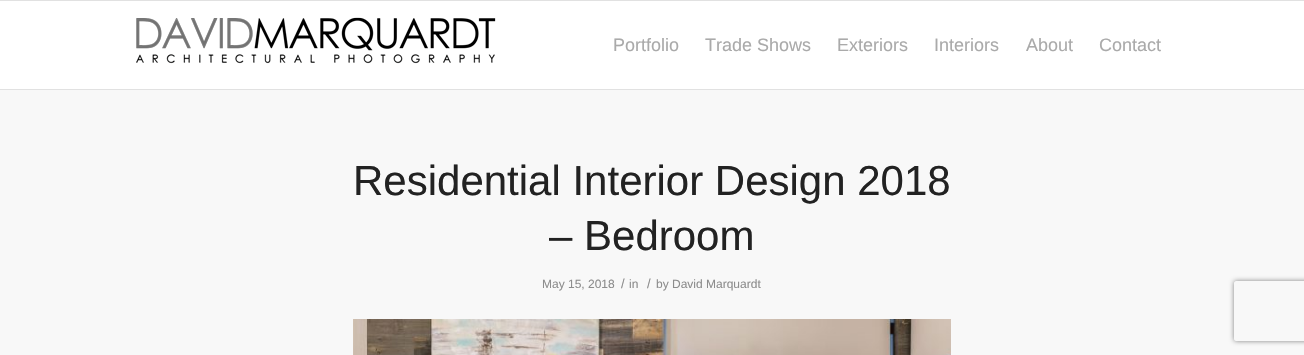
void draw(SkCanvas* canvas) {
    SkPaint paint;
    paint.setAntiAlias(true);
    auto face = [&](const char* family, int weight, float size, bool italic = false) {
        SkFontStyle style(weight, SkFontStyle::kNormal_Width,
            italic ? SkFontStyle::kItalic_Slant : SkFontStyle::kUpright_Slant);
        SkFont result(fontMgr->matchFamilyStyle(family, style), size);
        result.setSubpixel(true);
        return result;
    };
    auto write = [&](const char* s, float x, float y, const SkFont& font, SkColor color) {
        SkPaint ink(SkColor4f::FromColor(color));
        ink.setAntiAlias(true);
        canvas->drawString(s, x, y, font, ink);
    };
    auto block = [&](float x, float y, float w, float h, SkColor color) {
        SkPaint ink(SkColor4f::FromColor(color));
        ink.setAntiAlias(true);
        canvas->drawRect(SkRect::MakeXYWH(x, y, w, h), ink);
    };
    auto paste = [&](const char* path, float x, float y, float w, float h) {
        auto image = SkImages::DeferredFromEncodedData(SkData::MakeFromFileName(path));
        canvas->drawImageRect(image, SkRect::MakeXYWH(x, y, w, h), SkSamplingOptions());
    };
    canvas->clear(SK_ColorWHITE);
    block(0, 0, 1304, 1, SkColorSetRGB(225, 225, 225));
    block(0, 89, 1304, 1, SkColorSetRGB(225, 225, 225));
    paste("pic1.png", 136, 17, 360, 47);
    auto kFont1 = face("Liberation Sans", 400, 18);
    write("Portfolio", 613, 51, kFont1, SkColorSetRGB(170, 170, 170));
    write("Trade Shows", 705, 51, kFont1, SkColorSetRGB(170, 170, 170));
    write("Exteriors", 837, 51, kFont1, SkColorSetRGB(170, 170, 170));
    write("Interiors", 934, 51, kFont1, SkColorSetRGB(170, 170, 170));
    write("About", 1026, 51, kFont1, SkColorSetRGB(170, 170, 170));
    write("Contact", 1099, 51, kFont1, SkColorSetRGB(170, 170, 170));
    block(0, 90, 1304, 265, SkColorSetRGB(248, 248, 248));
    auto kFont2 = face("Liberation Sans", 400, 42);
    write("Residential Interior Design 2018", 353, 195, kFont2, SkColorSetRGB(34, 34, 34));
    write("– Bedroom", 549, 250, kFont2, SkColorSetRGB(34, 34, 34));
    auto kFont3 = face("Liberation Sans", 400, 12);
    write("May 15, 2018", 542, 288, kFont3, SkColorSetRGB(141, 141, 141));
    auto kFont4 = face("Liberation Sans", 400, 13);
    write("/", 621, 288, kFont4, SkColorSetRGB(141, 141, 141));
    write("in", 629, 288, kFont3, SkColorSetRGB(141, 141, 141));
    write("/", 647, 288, kFont4, SkColorSetRGB(141, 141, 141));
    write("by David Marquardt", 656, 288, kFont3, SkColorSetRGB(141, 141, 141));
    paste("pic2.png", 353, 319, 598, 36);
    canvas->save();
    canvas->clipPath(SkPathBuilder(SkPathFillType::kEvenOdd).moveTo(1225, 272).lineTo(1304, 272).lineTo(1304, 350).lineTo(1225, 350).close().moveTo(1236, 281).lineTo(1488, 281).cubicTo(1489, 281, 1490, 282, 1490, 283).lineTo(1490, 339).cubicTo(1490, 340, 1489, 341, 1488, 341).lineTo(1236, 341).cubicTo(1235, 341, 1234, 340, 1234, 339).lineTo(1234, 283).cubicTo(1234, 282, 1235, 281, 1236, 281).close().detach(), true);
    paint.setColor(SkColorSetRGB(128, 128, 128));
    paint.setMaskFilter(SkMaskFilter::MakeBlur(kNormal_SkBlurStyle, 2.5f));
    canvas->drawRoundRect(SkRect::MakeXYWH(1234, 281, 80, 60), 2, 2, paint);
    paint.setMaskFilter(nullptr);
    canvas->restore();
}
